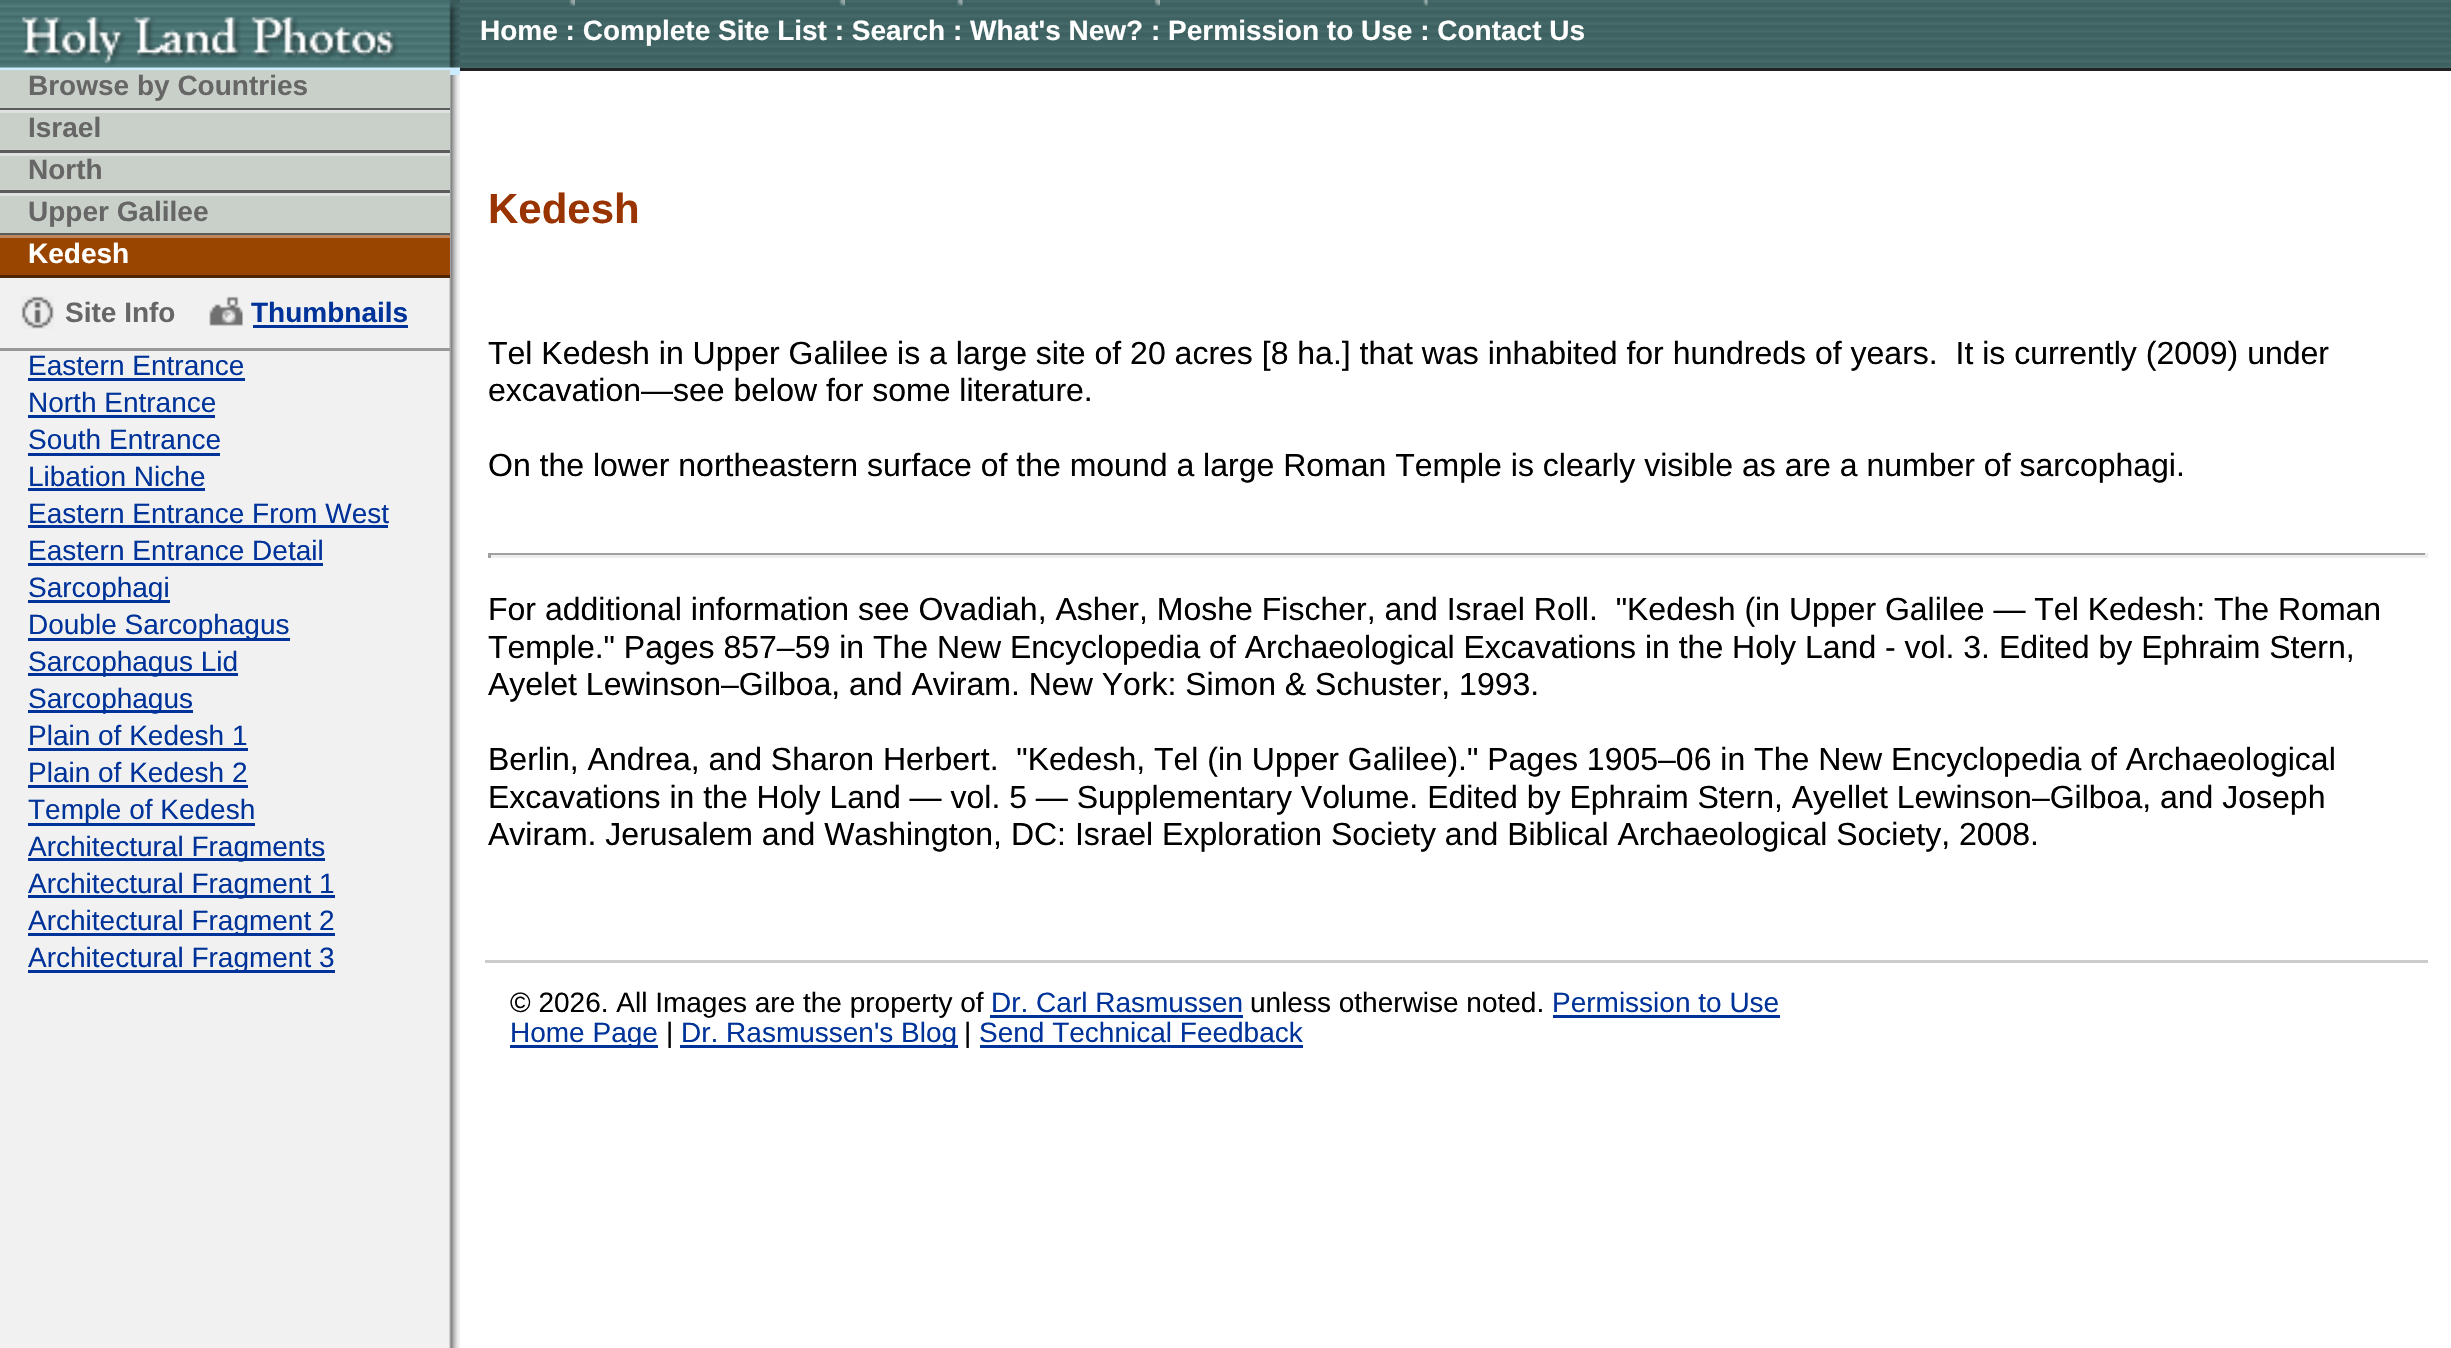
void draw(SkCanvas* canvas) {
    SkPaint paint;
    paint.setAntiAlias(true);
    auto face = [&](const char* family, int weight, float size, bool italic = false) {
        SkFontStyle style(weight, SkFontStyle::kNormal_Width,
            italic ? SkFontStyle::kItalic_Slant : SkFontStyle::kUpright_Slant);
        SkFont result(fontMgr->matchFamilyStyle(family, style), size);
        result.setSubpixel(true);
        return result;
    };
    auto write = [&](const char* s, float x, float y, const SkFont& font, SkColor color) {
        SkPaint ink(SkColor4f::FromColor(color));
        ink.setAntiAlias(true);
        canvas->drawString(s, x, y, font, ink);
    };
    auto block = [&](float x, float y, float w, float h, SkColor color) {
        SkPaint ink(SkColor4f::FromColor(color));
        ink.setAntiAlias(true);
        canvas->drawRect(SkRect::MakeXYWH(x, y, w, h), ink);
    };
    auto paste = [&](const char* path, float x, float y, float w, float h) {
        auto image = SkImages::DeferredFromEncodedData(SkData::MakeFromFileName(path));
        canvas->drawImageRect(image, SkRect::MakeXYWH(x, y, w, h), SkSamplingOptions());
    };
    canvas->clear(SK_ColorWHITE);
    paste("pic1.png", 0, 75, 460, 1273);
    paste("pic2.png", 460, 0, 1991, 68);
    block(460, 68, 1991, 3, SkColorSetRGB(34, 34, 34));
    block(0, 67, 460, 8, SkColorSetRGB(204, 236, 255));
    paste("pic3.png", 0, 0, 460, 68);
    paste("pic4.png", 569, 0, 6, 6);
    paste("pic4.png", 839, 0, 6, 6);
    paste("pic5.png", 957, 0, 6, 6);
    paste("pic4.png", 1154, 0, 6, 6);
    paste("pic6.png", 1423, 0, 5, 6);
    auto kFont1 = face("Liberation Sans", 700, 28);
    write("Home : Complete Site List : Search : What's New? : Permission to Use : Contact Us", 480, 40, kFont1, SK_ColorWHITE);
    block(0, 70, 450, 38, SkColorSetRGB(201, 208, 201));
    block(0, 108, 450, 2, SkColorSetRGB(92, 92, 92));
    write("Browse by Countries", 28, 95, kFont1, SkColorSetRGB(102, 102, 102));
    block(0, 113, 450, 37, SkColorSetRGB(201, 208, 201));
    block(0, 110, 450, 3, SkColorSetRGB(222, 226, 222));
    block(0, 150, 450, 3, SkColorSetRGB(92, 92, 92));
    write("Israel", 28, 137, kFont1, SkColorSetRGB(102, 102, 102));
    block(0, 156, 450, 34, SkColorSetRGB(201, 208, 201));
    block(0, 153, 450, 3, SkColorSetRGB(222, 226, 222));
    block(0, 190, 450, 3, SkColorSetRGB(92, 92, 92));
    write("North", 28, 179, kFont1, SkColorSetRGB(102, 102, 102));
    block(0, 196, 450, 37, SkColorSetRGB(201, 208, 201));
    block(0, 193, 450, 3, SkColorSetRGB(222, 226, 222));
    block(0, 233, 450, 2, SkColorSetRGB(92, 92, 92));
    write("Upper Galilee", 28, 221, kFont1, SkColorSetRGB(102, 102, 102));
    block(0, 238, 450, 37, SkColorSetRGB(153, 69, 0));
    block(0, 235, 450, 3, SkColorSetRGB(190, 136, 92));
    block(0, 275, 450, 3, SkColorSetRGB(80, 36, 0));
    write("Kedesh", 28, 263, kFont1, SK_ColorWHITE);
    block(0, 348, 450, 3, SkColorSetRGB(153, 153, 153));
    paste("pic7.png", 21, 296, 33, 33);
    write("Site Info", 65, 322, kFont1, SkColorSetRGB(102, 102, 102));
    paste("pic8.png", 209, 296, 34, 30);
    write("Thumbnails", 251, 322, kFont1, SkColorSetRGB(0, 51, 153));
    block(253, 325, 155, 3, SkColorSetRGB(0, 51, 153));
    auto kFont2 = face("Liberation Sans", 400, 28);
    write("Eastern Entrance", 28, 375, kFont2, SkColorSetRGB(0, 51, 153));
    block(28, 378, 217, 3, SkColorSetRGB(0, 51, 153));
    write("North Entrance", 28, 412, kFont2, SkColorSetRGB(0, 51, 153));
    block(28, 415, 187, 3, SkColorSetRGB(0, 51, 153));
    write("South Entrance", 28, 449, kFont2, SkColorSetRGB(0, 51, 153));
    block(28, 453, 192, 3, SkColorSetRGB(0, 51, 153));
    write("Libation Niche", 28, 486, kFont2, SkColorSetRGB(0, 51, 153));
    block(28, 488, 177, 3, SkColorSetRGB(0, 51, 153));
    write("Eastern Entrance From West", 28, 523, kFont2, SkColorSetRGB(0, 51, 153));
    block(28, 525, 360, 3, SkColorSetRGB(0, 51, 153));
    write("Eastern Entrance Detail", 28, 560, kFont2, SkColorSetRGB(0, 51, 153));
    block(28, 563, 295, 3, SkColorSetRGB(0, 51, 153));
    block(28, 600, 142, 3, SkColorSetRGB(0, 51, 153));
    write("Sarcophagi", 28, 597, kFont2, SkColorSetRGB(0, 51, 153));
    block(28, 638, 262, 3, SkColorSetRGB(0, 51, 153));
    write("Double Sarcophagus", 28, 634, kFont2, SkColorSetRGB(0, 51, 153));
    block(28, 673, 210, 3, SkColorSetRGB(0, 51, 153));
    write("Sarcophagus Lid", 28, 671, kFont2, SkColorSetRGB(0, 51, 153));
    block(28, 710, 165, 3, SkColorSetRGB(0, 51, 153));
    write("Sarcophagus", 28, 708, kFont2, SkColorSetRGB(0, 51, 153));
    write("Plain of Kedesh 1", 28, 745, kFont2, SkColorSetRGB(0, 51, 153));
    block(28, 748, 220, 3, SkColorSetRGB(0, 51, 153));
    write("Plain of Kedesh 2", 28, 782, kFont2, SkColorSetRGB(0, 51, 153));
    block(28, 785, 220, 3, SkColorSetRGB(0, 51, 153));
    block(28, 823, 227, 3, SkColorSetRGB(0, 51, 153));
    write("Temple of Kedesh", 28, 819, kFont2, SkColorSetRGB(0, 51, 153));
    block(28, 858, 297, 3, SkColorSetRGB(0, 51, 153));
    write("Architectural Fragments", 28, 856, kFont2, SkColorSetRGB(0, 51, 153));
    block(28, 895, 307, 3, SkColorSetRGB(0, 51, 153));
    write("Architectural Fragment 1", 28, 893, kFont2, SkColorSetRGB(0, 51, 153));
    block(28, 933, 307, 3, SkColorSetRGB(0, 51, 153));
    write("Architectural Fragment 2", 28, 930, kFont2, SkColorSetRGB(0, 51, 153));
    block(28, 970, 307, 3, SkColorSetRGB(0, 51, 153));
    write("Architectural Fragment 3", 28, 967, kFont2, SkColorSetRGB(0, 51, 153));
    auto kFont3 = face("Liberation Sans", 700, 42);
    write("Kedesh", 488, 223, kFont3, SkColorSetRGB(153, 51, 0));
    auto kFont4 = face("Liberation Sans", 400, 32);
    write("Tel Kedesh in Upper Galilee is a large site of 20 acres [8 ha.] that was inhabited for hundreds of years.  It is currently (2009) under", 488, 364, kFont4, SK_ColorBLACK);
    write("excavation—see below for some literature.", 488, 401, kFont4, SK_ColorBLACK);
    write("On the lower northeastern surface of the mound a large Roman Temple is clearly visible as are a number of sarcophagi.", 488, 476, kFont4, SK_ColorBLACK);
    block(488, 553, 1940, 2, SkColorSetRGB(159, 159, 159));
    block(2425, 553, 3, 5, SkColorSetRGB(238, 238, 238));
    block(488, 555, 1940, 3, SkColorSetRGB(238, 238, 238));
    block(488, 553, 3, 5, SkColorSetRGB(159, 159, 159));
    write("For additional information see Ovadiah, Asher, Moshe Fischer, and Israel Roll.  \"Kedesh (in Upper Galilee — Tel Kedesh: The Roman", 488, 620, kFont4, SK_ColorBLACK);
    write("Temple.\" Pages 857–59 in The New Encyclopedia of Archaeological Excavations in the Holy Land - vol. 3. Edited by Ephraim Stern,", 488, 658, kFont4, SK_ColorBLACK);
    write("Ayelet Lewinson–Gilboa, and Aviram. New York: Simon & Schuster, 1993.", 488, 695, kFont4, SK_ColorBLACK);
    write("Berlin, Andrea, and Sharon Herbert.  \"Kedesh, Tel (in Upper Galilee).\" Pages 1905–06 in The New Encyclopedia of Archaeological", 488, 770, kFont4, SK_ColorBLACK);
    write("Excavations in the Holy Land — vol. 5 — Supplementary Volume. Edited by Ephraim Stern, Ayellet Lewinson–Gilboa, and Joseph", 488, 808, kFont4, SK_ColorBLACK);
    write("Aviram. Jerusalem and Washington, DC: Israel Exploration Society and Biblical Archaeological Society, 2008.", 488, 845, kFont4, SK_ColorBLACK);
    block(485, 960, 1943, 3, SkColorSetRGB(204, 204, 204));
    write("© 2026. All Images are the property of", 510, 1012, kFont2, SK_ColorBLACK);
    write("Dr. Carl Rasmussen", 991, 1012, kFont2, SkColorSetRGB(0, 51, 153));
    block(990, 1015, 253, 3, SkColorSetRGB(0, 51, 153));
    write("unless otherwise noted.", 1250, 1012, kFont2, SK_ColorBLACK);
    write("Permission to Use", 1552, 1012, kFont2, SkColorSetRGB(0, 51, 153));
    block(1553, 1015, 227, 3, SkColorSetRGB(0, 51, 153));
    block(510, 1045, 148, 3, SkColorSetRGB(0, 51, 153));
    write("Home Page", 510, 1042, kFont2, SkColorSetRGB(0, 51, 153));
    write("|", 666, 1042, kFont2, SK_ColorBLACK);
    block(680, 1045, 278, 3, SkColorSetRGB(0, 51, 153));
    write("Dr. Rasmussen's Blog", 681, 1042, kFont2, SkColorSetRGB(0, 51, 153));
    write("|", 964, 1042, kFont2, SK_ColorBLACK);
    write("Send Technical Feedback", 979, 1042, kFont2, SkColorSetRGB(0, 51, 153));
    block(980, 1045, 323, 3, SkColorSetRGB(0, 51, 153));
}
